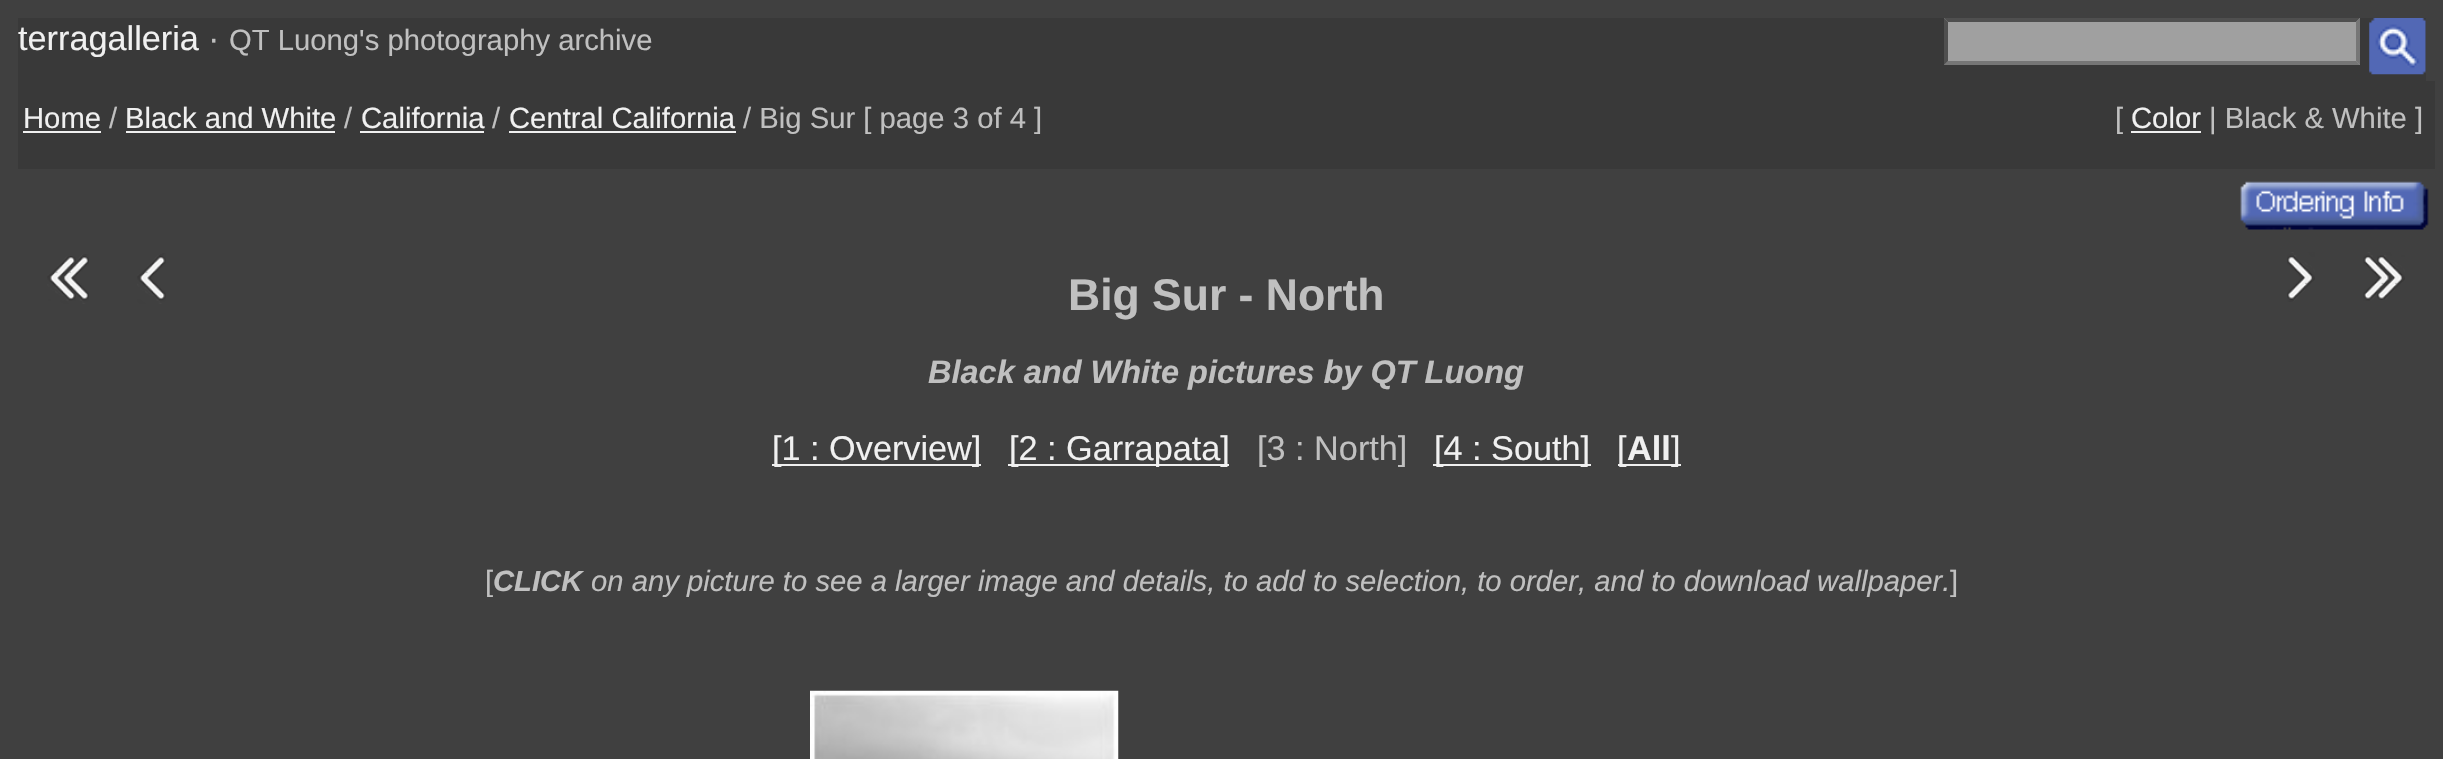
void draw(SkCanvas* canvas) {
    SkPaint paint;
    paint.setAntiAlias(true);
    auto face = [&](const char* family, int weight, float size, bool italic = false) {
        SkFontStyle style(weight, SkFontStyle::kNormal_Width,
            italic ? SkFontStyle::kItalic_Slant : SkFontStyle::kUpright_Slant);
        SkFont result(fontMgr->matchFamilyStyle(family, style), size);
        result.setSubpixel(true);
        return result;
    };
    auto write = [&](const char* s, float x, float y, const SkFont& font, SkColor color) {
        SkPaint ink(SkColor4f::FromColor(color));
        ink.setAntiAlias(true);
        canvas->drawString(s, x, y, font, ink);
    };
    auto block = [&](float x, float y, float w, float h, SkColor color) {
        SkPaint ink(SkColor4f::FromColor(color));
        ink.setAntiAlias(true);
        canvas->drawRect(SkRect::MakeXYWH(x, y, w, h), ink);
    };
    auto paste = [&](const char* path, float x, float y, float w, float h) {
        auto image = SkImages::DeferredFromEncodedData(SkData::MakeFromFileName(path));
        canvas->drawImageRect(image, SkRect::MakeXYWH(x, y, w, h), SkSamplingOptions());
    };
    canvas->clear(SkColorSetRGB(64, 64, 64));
    block(18, 18, 2408, 63, SkColorSetRGB(57, 57, 57));
    auto kFont1 = face("Liberation Sans", 400, 34.25f);
    write("terragalleria", 18, 50, kFont1, SkColorSetRGB(240, 240, 240));
    write("·", 208, 50, kFont1, SkColorSetRGB(192, 192, 192));
    auto kFont2 = face("Liberation Sans", 400, 29.25f);
    write("QT Luong's photography archive", 229, 50, kFont2, SkColorSetRGB(192, 192, 192));
    block(1944, 18, 416, 47, SkColorSetRGB(160, 160, 160));
    paint.setColor(SkColorSetRGB(79, 79, 79));
    canvas->drawPath(SkPathBuilder().moveTo(1944, 18).lineTo(2360, 18).lineTo(2356, 22).lineTo(1948, 22).close().detach(), paint);
    paint.setColor(SkColorSetRGB(118, 118, 118));
    canvas->drawPath(SkPathBuilder().moveTo(2360, 18).lineTo(2360, 65).lineTo(2356, 61).lineTo(2356, 22).close().detach(), paint);
    canvas->drawPath(SkPathBuilder().moveTo(2360, 65).lineTo(1944, 65).lineTo(1948, 61).lineTo(2356, 61).close().detach(), paint);
    paint.setColor(SkColorSetRGB(79, 79, 79));
    canvas->drawPath(SkPathBuilder().moveTo(1944, 65).lineTo(1944, 18).lineTo(1948, 22).lineTo(1948, 61).close().detach(), paint);
    paste("pic1.png", 2369, 18, 57, 57);
    block(18, 81, 2417, 88, SkColorSetRGB(57, 57, 57));
    write("Home", 23, 128, kFont2, SkColorSetRGB(240, 240, 240));
    block(23, 131, 78, 2, SkColorSetRGB(240, 240, 240));
    write("/", 109, 128, kFont2, SkColorSetRGB(192, 192, 192));
    write("Black and White", 125, 128, kFont2, SkColorSetRGB(240, 240, 240));
    block(126, 131, 209, 2, SkColorSetRGB(240, 240, 240));
    write("/", 344, 128, kFont2, SkColorSetRGB(192, 192, 192));
    write("California", 361, 128, kFont2, SkColorSetRGB(240, 240, 240));
    block(360, 131, 124, 2, SkColorSetRGB(240, 240, 240));
    write("/", 492, 128, kFont2, SkColorSetRGB(192, 192, 192));
    write("Central California", 509, 128, kFont2, SkColorSetRGB(240, 240, 240));
    block(509, 131, 227, 2, SkColorSetRGB(240, 240, 240));
    write("/ Big Sur [ page 3 of 4 ]", 743, 128, kFont2, SkColorSetRGB(192, 192, 192));
    write("[", 2115, 128, kFont2, SkColorSetRGB(192, 192, 192));
    write("Color", 2131, 128, kFont2, SkColorSetRGB(240, 240, 240));
    block(2131, 131, 70, 2, SkColorSetRGB(240, 240, 240));
    write("| Black & White ]", 2209, 128, kFont2, SkColorSetRGB(192, 192, 192));
    paste("pic2.png", 2240, 181, 189, 49);
    paste("pic3.png", 47, 254, 42, 50);
    paste("pic4.png", 137, 253, 29, 51);
    auto kFont3 = face("Liberation Sans", 700, 44.5f);
    write("Big Sur - North", 1068, 310, kFont3, SkColorSetRGB(192, 192, 192));
    auto kFont4 = face("Liberation Sans", 700, 32.5f, true);
    write("Black and White pictures by QT Luong", 928, 383, kFont4, SkColorSetRGB(192, 192, 192));
    paste("pic5.png", 2287, 252, 28, 50);
    paste("pic6.png", 2363, 252, 42, 49);
    block(772, 464, 209, 2, SkColorSetRGB(240, 240, 240));
    write("[1 : Overview]", 772, 460, kFont1, SkColorSetRGB(240, 240, 240));
    block(1008, 464, 221, 2, SkColorSetRGB(240, 240, 240));
    write("[2 : Garrapata]", 1009, 460, kFont1, SkColorSetRGB(240, 240, 240));
    write("[3 : North]", 1257, 460, kFont1, SkColorSetRGB(192, 192, 192));
    block(1433, 464, 158, 2, SkColorSetRGB(240, 240, 240));
    write("[4 : South]", 1434, 460, kFont1, SkColorSetRGB(240, 240, 240));
    block(1618, 464, 63, 2, SkColorSetRGB(240, 240, 240));
    write("[", 1617, 460, kFont1, SkColorSetRGB(240, 240, 240));
    auto kFont5 = face("Liberation Sans", 700, 34.25f);
    write("All", 1627, 460, kFont5, SkColorSetRGB(240, 240, 240));
    write("]", 1671, 460, kFont1, SkColorSetRGB(240, 240, 240));
    write("[", 485, 591, kFont2, SkColorSetRGB(192, 192, 192));
    auto kFont6 = face("Liberation Sans", 700, 29.25f, true);
    write("CLICK", 493, 591, kFont6, SkColorSetRGB(192, 192, 192));
    auto kFont7 = face("Liberation Sans", 400, 29.25f, true);
    write("on any picture to see a larger image and details, to add to selection, to order, and to download wallpaper.", 591, 591, kFont7, SkColorSetRGB(192, 192, 192));
    write("]", 1950, 591, kFont2, SkColorSetRGB(192, 192, 192));
    paste("pic7.png", 810, 690, 309, 69);
}
